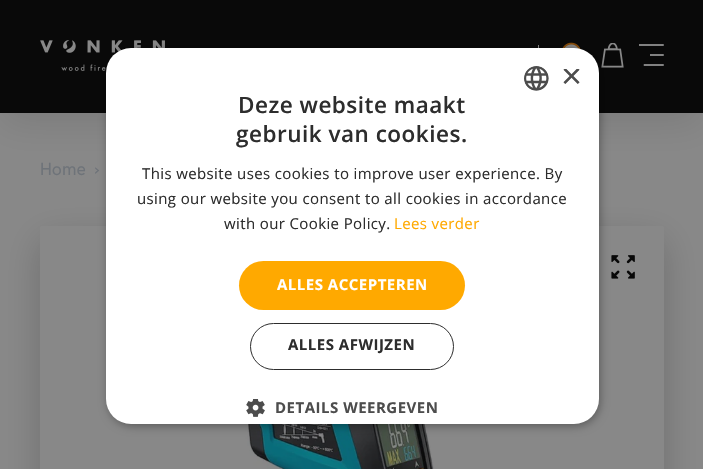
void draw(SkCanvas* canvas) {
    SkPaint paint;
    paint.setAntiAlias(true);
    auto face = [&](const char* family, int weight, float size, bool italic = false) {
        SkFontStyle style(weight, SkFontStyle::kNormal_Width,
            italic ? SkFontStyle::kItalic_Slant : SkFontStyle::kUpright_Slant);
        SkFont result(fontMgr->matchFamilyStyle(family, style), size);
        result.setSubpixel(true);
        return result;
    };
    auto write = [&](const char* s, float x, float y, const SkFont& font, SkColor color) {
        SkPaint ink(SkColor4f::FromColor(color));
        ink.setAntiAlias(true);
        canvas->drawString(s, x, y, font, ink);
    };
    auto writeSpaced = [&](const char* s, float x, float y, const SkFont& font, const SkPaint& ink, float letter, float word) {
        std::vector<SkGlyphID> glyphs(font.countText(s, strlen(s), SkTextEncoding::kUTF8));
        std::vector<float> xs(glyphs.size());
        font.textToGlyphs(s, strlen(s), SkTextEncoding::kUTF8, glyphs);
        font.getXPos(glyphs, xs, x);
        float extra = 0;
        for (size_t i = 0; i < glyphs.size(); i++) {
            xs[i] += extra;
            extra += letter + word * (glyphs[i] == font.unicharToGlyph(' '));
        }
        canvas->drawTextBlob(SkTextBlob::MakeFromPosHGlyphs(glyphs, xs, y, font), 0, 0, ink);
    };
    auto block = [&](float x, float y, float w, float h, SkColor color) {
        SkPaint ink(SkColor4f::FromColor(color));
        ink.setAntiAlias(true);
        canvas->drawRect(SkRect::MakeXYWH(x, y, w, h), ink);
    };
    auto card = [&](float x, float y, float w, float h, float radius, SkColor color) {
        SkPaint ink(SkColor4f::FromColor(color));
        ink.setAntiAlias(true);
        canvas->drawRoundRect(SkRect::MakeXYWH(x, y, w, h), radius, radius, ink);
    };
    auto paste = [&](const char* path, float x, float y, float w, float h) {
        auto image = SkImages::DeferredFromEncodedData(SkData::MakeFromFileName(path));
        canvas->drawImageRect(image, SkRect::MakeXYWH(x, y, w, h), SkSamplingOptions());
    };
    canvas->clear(SkColorSetRGB(136, 136, 136));
    paint.setColor(SkColorSetARGB(26, 9, 9, 9));
    paint.setMaskFilter(SkMaskFilter::MakeBlur(kNormal_SkBlurStyle, 19));
    canvas->drawRect(SkRect::MakeXYWH(0, 13, 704, 112), paint);
    paint.setMaskFilter(nullptr);
    block(0, 0, 703, 113, SkColorSetRGB(9, 9, 9));
    paste("pic1.png", 40, 40, 125, 31);
    block(538, 45, 1, 3, SkColorSetRGB(136, 136, 136));
    paste("pic2.png", 562, 42, 19, 7);
    paste("pic3.png", 601, 43, 23, 25);
    paste("pic4.png", 639, 44, 25, 22);
    auto kFont1 = face("Hanken Grotesk", 400, 17.5f);
    write("Home", 40, 175, kFont1, SkColorSetRGB(110, 115, 121));
    write("›", 95, 175, kFont1, SkColorSetRGB(110, 115, 121));
    canvas->save();
    canvas->clipPath(SkPathBuilder(SkPathFillType::kEvenOdd).moveTo(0, 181).lineTo(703, 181).lineTo(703, 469).lineTo(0, 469).close().moveTo(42.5f, 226).lineTo(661.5f, 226).cubicTo(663, 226, 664, 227, 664, 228.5f).lineTo(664, 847.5f).cubicTo(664, 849, 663, 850, 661.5f, 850).lineTo(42.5f, 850).cubicTo(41, 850, 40, 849, 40, 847.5f).lineTo(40, 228.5f).cubicTo(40, 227, 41, 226, 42.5f, 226).close().detach(), true);
    paint.setColor(SkColorSetARGB(51, 9, 9, 9));
    paint.setMaskFilter(SkMaskFilter::MakeBlur(kNormal_SkBlurStyle, 19));
    canvas->drawRoundRect(SkRect::MakeXYWH(40, 239, 624, 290), 2.5f, 2.5f, paint);
    paint.setMaskFilter(nullptr);
    canvas->restore();
    card(40, 226, 624, 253, 10, SkColorSetRGB(136, 136, 136));
    paste("pic5.png", 245, 424, 189, 45);
    paste("pic6.png", 611, 255, 24, 24);
    paint.setColor(SkColorSetARGB(89, 0, 0, 0));
    paint.setMaskFilter(SkMaskFilter::MakeBlur(kNormal_SkBlurStyle, 5));
    canvas->drawRoundRect(SkRect::MakeXYWH(108, 50, 492, 376), 25, 25, paint);
    paint.setMaskFilter(nullptr);
    card(106, 48, 493, 376, 25, SK_ColorWHITE);
    paste("pic7.png", 524, 66, 25, 25);
    canvas->save();
    canvas->clipRect(SkRect::MakeXYWH(561, 69, 19, 19));
    auto kFont2 = face("Liberation Sans", 400, 36);
    write("×", 561, 88, kFont2, SkColorSetRGB(77, 77, 77));
    canvas->restore();
    auto kFont3 = face("Open Sans", 600, 22.5f);
    paint.setColor(SkColorSetRGB(45, 45, 45));
    writeSpaced("Deze website maakt", 238, 113, kFont3, paint, 0.5f, 0);
    writeSpaced("gebruik van cookies.", 236, 142, kFont3, paint, 0.5f, 0);
    auto kFont4 = face("Open Sans", 400, 15);
    writeSpaced("This website uses cookies to improve user experience. By", 142, 179, kFont4, paint, 0.38f, 0);
    writeSpaced("using our website you consent to all cookies in accordance", 137, 204, kFont4, paint, 0.38f, 0);
    writeSpaced("with our Cookie Policy.", 224, 229, kFont4, paint, 0.38f, 0);
    paint.setColor(SkColorSetRGB(255, 169, 0));
    writeSpaced("Lees verder", 394, 229, kFont4, paint, 0.38f, 0);
    card(239, 261, 226, 49, 24.5f, SkColorSetRGB(255, 169, 0));
    auto kFont5 = face("Open Sans", 700, 15);
    paint.setColor(SK_ColorWHITE);
    writeSpaced("ALLES ACCEPTEREN", 277, 290, kFont5, paint, 0.5f, 0);
    paint.setStyle(SkPaint::kStroke_Style);
    paint.setStrokeWidth(1);
    paint.setColor(SkColorSetRGB(45, 45, 45));
    canvas->drawRoundRect(SkRect::MakeXYWH(250.5f, 323.5f, 203, 46), 23, 23, paint);
    paint.setStyle(SkPaint::kFill_Style);
    writeSpaced("ALLES AFWIJZEN", 288, 350, kFont5, paint, 0.5f, 0);
    paste("pic8.png", 246, 399, 19, 18);
    paint.setColor(SkColorSetRGB(77, 77, 77));
    writeSpaced("DETAILS WEERGEVEN", 275, 413, kFont5, paint, 0.5f, 0);
}
